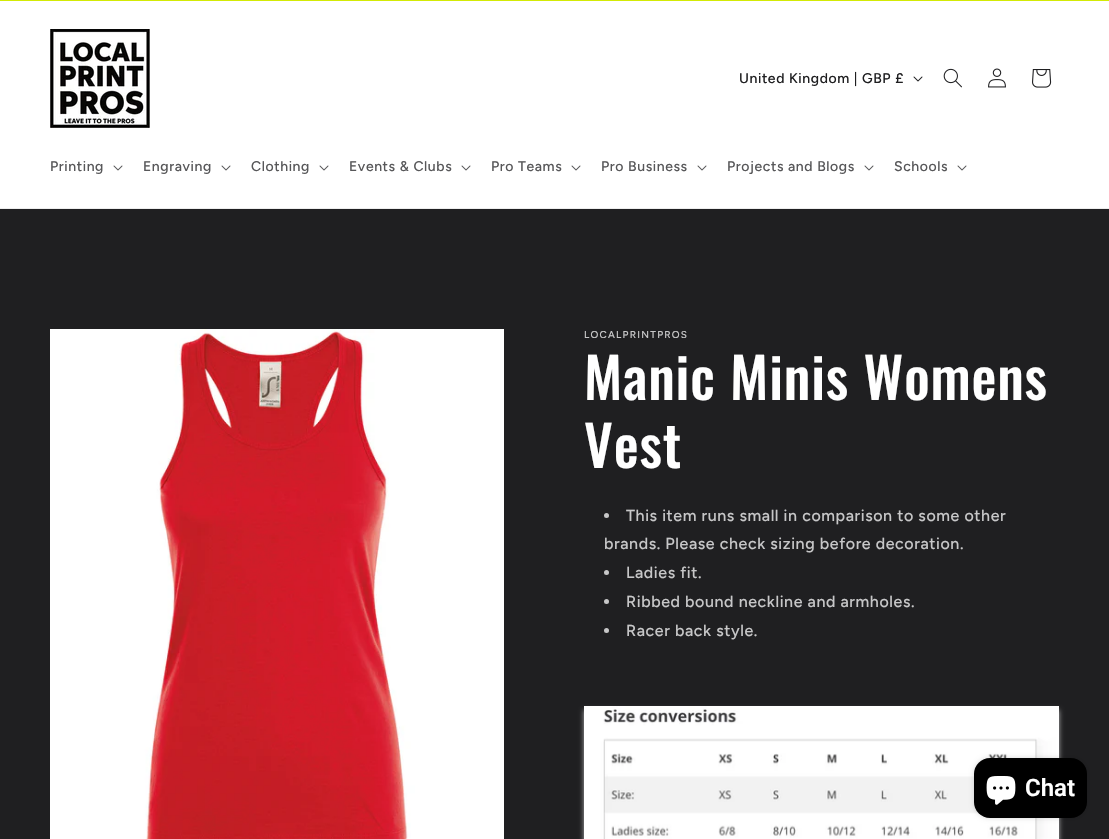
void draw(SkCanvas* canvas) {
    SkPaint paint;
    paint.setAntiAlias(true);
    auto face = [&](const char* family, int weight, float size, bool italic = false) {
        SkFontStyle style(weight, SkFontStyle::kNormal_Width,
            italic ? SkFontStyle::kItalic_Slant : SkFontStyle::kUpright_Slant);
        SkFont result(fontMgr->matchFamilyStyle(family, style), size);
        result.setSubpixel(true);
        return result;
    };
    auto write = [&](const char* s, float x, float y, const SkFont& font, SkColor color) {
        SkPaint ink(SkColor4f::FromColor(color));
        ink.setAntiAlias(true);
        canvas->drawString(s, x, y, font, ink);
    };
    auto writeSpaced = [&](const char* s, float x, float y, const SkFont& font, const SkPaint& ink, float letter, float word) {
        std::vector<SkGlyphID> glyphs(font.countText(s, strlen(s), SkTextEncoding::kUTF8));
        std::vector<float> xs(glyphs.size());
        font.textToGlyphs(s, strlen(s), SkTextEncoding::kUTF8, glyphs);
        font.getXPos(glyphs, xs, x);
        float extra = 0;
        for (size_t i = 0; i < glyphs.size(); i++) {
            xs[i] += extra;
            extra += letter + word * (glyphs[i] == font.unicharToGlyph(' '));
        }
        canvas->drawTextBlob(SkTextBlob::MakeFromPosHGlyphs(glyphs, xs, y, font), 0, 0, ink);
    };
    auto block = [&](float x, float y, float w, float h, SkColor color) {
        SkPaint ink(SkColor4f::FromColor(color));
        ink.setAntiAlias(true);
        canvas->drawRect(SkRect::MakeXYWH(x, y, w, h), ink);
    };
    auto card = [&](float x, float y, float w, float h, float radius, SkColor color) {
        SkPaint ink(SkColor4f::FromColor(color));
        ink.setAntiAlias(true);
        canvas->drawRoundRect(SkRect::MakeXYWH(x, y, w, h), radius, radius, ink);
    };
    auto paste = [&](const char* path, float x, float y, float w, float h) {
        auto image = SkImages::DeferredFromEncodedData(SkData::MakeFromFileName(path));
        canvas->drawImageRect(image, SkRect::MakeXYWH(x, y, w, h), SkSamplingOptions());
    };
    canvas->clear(SkColorSetRGB(31, 31, 33));
    block(0, 0, 1109, 1, SkColorSetRGB(211, 234, 4));
    block(0, 1, 1109, 207, SK_ColorWHITE);
    block(0, 208, 1109, 1, SkColorSetRGB(237, 237, 237));
    paste("pic1.png", 50, 29, 100, 99);
    auto kFont1 = face("Figtree", 500, 14);
    paint.setColor(SkColorSetRGB(31, 31, 33));
    writeSpaced("United Kingdom | GBP £", 739, 83, kFont1, paint, 0.6f, 0);
    paste("pic2.png", 913, 76, 10, 6);
    paste("pic3.png", 943, 68, 19, 20);
    paste("pic4.png", 988, 68, 18, 20);
    paste("pic5.png", 1032, 69, 20, 19);
    paint.setColor(SkColorSetRGB(87, 87, 89));
    writeSpaced("Printing", 50, 171, kFont1, paint, 0.6f, 0);
    paste("pic6.png", 113, 165, 10, 6);
    writeSpaced("Engraving", 143, 171, kFont1, paint, 0.6f, 0);
    paste("pic6.png", 221, 165, 10, 6);
    writeSpaced("Clothing", 251, 171, kFont1, paint, 0.6f, 0);
    paste("pic6.png", 319, 165, 10, 6);
    writeSpaced("Events & Clubs", 349, 171, kFont1, paint, 0.6f, 0);
    paste("pic6.png", 461, 165, 10, 6);
    writeSpaced("Pro Teams", 491, 171, kFont1, paint, 0.6f, 0);
    paste("pic6.png", 571, 165, 10, 6);
    writeSpaced("Pro Business", 601, 171, kFont1, paint, 0.6f, 0);
    paste("pic6.png", 697, 165, 10, 6);
    writeSpaced("Projects and Blogs", 727, 171, kFont1, paint, 0.6f, 0);
    paste("pic6.png", 864, 165, 10, 6);
    writeSpaced("Schools", 894, 171, kFont1, paint, 0.6f, 0);
    paste("pic6.png", 957, 165, 10, 6);
    paste("pic7.png", 50, 329, 454, 510);
    auto kFont2 = face("Figtree", 500, 10);
    paint.setColor(SkColorSetRGB(199, 199, 200));
    writeSpaced("LOCALPRINTPROS", 584, 338, kFont2, paint, 1.25f, 0);
    auto kFont3 = face("Oswald", 500, 56);
    paint.setColor(SK_ColorWHITE);
    writeSpaced("Manic Minis Womens", 584, 400, kFont3, paint, 0.8f, 0);
    writeSpaced("Vest", 584, 468, kFont3, paint, 0.8f, 0);
    paint.setColor(SkColorSetRGB(199, 199, 200));
    canvas->drawCircle(606.5f, 515.5f, 2.5f, paint);
    auto kFont4 = face("Figtree", 500, 16);
    writeSpaced("This item runs small in comparison to some other", 626, 521, kFont4, paint, 0.6f, 0);
    writeSpaced("brands. Please check sizing before decoration.", 604, 549, kFont4, paint, 0.6f, 0);
    canvas->drawCircle(606.5f, 572.5f, 2.5f, paint);
    writeSpaced("Ladies fit.", 626, 578, kFont4, paint, 0.6f, 0);
    canvas->drawCircle(606.5f, 601.5f, 2.5f, paint);
    writeSpaced("Ribbed bound neckline and armholes.", 626, 607, kFont4, paint, 0.6f, 0);
    canvas->drawCircle(606.5f, 630.5f, 2.5f, paint);
    writeSpaced("Racer back style.", 626, 636, kFont4, paint, 0.6f, 0);
    paint.setColor(SkColorSetARGB(166, 255, 255, 255));
    paint.setMaskFilter(SkMaskFilter::MakeBlur(kNormal_SkBlurStyle, 2.5f));
    canvas->drawRect(SkRect::MakeXYWH(584, 710, 475, 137), paint);
    paint.setMaskFilter(nullptr);
    paste("pic8.png", 584, 706, 475, 133);
    paint.setColor(SkColorSetARGB(38, 0, 0, 0));
    paint.setMaskFilter(SkMaskFilter::MakeBlur(kNormal_SkBlurStyle, 2.5f));
    canvas->drawRoundRect(SkRect::MakeXYWH(974, 758, 113, 60), 16, 16, paint);
    paint.setMaskFilter(nullptr);
    card(974, 758, 113, 60, 16, SK_ColorBLACK);
    paste("pic9.png", 986, 776, 30, 29);
    auto kFont5 = face("Roboto", 600, 24);
    write("Chat", 1025, 796, kFont5, SK_ColorWHITE);
}
